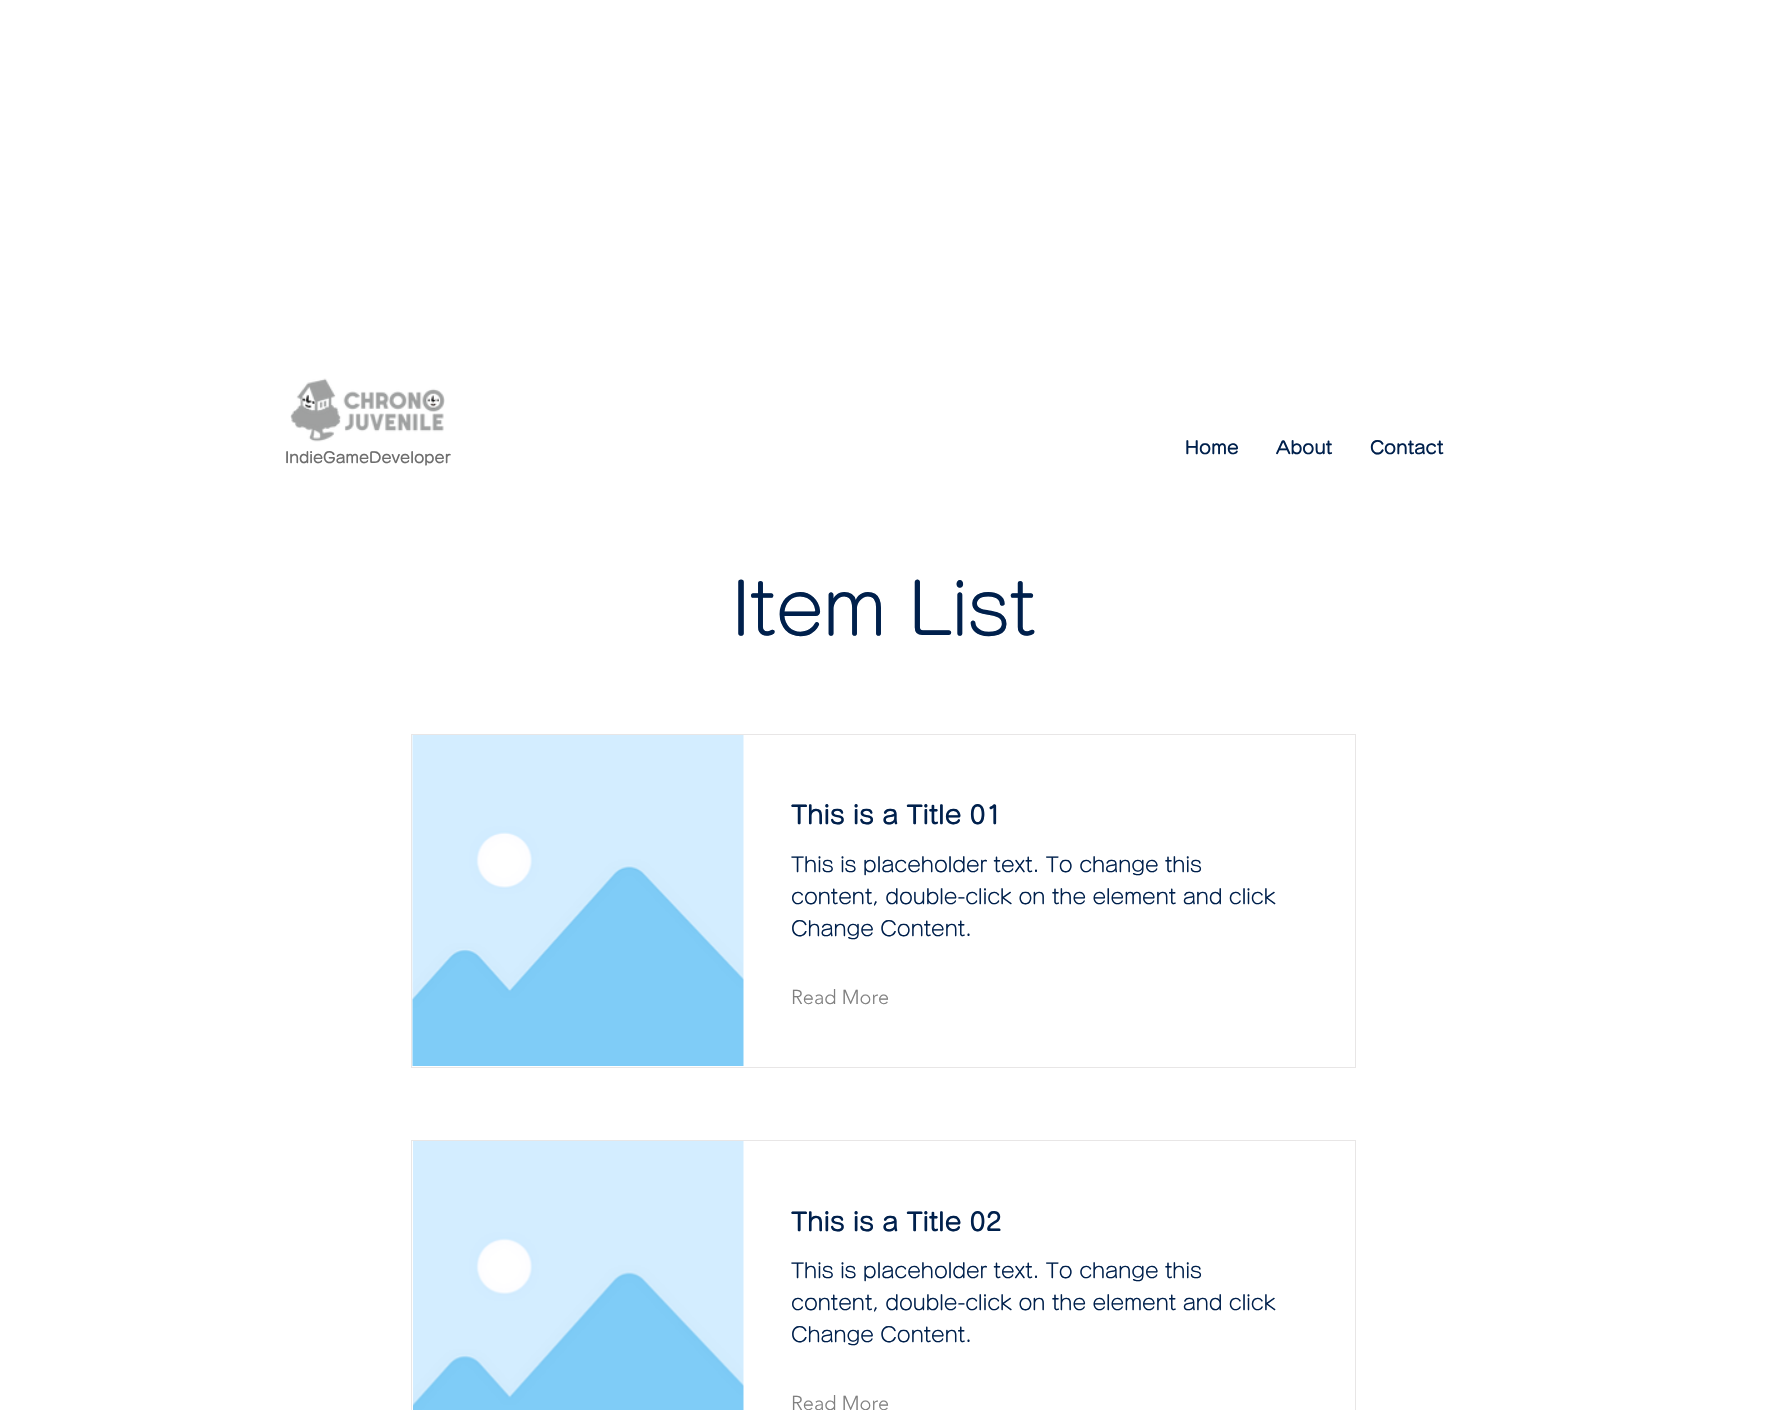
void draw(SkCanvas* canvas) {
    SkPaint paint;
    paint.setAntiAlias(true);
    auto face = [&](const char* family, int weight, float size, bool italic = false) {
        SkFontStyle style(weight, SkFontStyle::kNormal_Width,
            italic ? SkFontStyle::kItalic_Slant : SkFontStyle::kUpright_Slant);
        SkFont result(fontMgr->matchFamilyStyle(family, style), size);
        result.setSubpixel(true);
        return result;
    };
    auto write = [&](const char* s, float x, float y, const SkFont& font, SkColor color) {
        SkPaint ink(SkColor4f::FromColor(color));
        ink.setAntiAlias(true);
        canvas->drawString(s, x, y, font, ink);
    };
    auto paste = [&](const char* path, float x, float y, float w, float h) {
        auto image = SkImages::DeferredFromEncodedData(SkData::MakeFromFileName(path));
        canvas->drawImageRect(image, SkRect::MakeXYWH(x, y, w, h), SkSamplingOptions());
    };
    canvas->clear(SK_ColorWHITE);
    paste("pic1.png", 290, 378, 155, 64);
    auto kFont1 = face("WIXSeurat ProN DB", 600, 17.5f);
    write("Home", 1185, 454, kFont1, SkColorSetRGB(0, 32, 76));
    write("About", 1276, 454, kFont1, SkColorSetRGB(0, 32, 76));
    write("Contact", 1370, 454, kFont1, SkColorSetRGB(0, 32, 76));
    auto kFont2 = face("WIXSeurat ProN DB", 600, 15);
    write("IndieGameDeveloper", 285, 463, kFont2, SkColorSetRGB(110, 110, 110));
    auto kFont3 = face("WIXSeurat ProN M", 500, 70);
    write("Item List", 732, 635, kFont3, SkColorSetRGB(0, 32, 76));
    paint.setStyle(SkPaint::kStroke_Style);
    paint.setStrokeWidth(1);
    paint.setColor(SkColorSetRGB(232, 230, 230));
    canvas->drawRect(SkRect::MakeXYWH(411.5f, 734.5f, 944, 333), paint);
    paste("pic2.png", 412, 735, 332, 331);
    auto kFont4 = face("WIXSeurat ProN DB", 600, 25);
    write("This is a Title 01", 791, 824, kFont4, SkColorSetRGB(0, 32, 76));
    auto kFont5 = face("WIXSeurat ProN M", 500, 20);
    write("This is placeholder text. To change this", 791, 872, kFont5, SkColorSetRGB(0, 32, 76));
    write("content, double-click on the element and click", 791, 904, kFont5, SkColorSetRGB(0, 32, 76));
    write("Change Content.", 791, 936, kFont5, SkColorSetRGB(0, 32, 76));
    auto kFont6 = face("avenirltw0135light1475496", 300, 20);
    write("Read More", 791, 1004, kFont6, SkColorSetRGB(128, 128, 128));
    canvas->drawRect(SkRect::MakeXYWH(411.5f, 1140.5f, 944, 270), paint);
    paste("pic3.png", 413, 1141, 331, 269);
    write("This is a Title 02", 791, 1231, kFont4, SkColorSetRGB(0, 32, 76));
    write("This is placeholder text. To change this", 791, 1278, kFont5, SkColorSetRGB(0, 32, 76));
    write("content, double-click on the element and click", 791, 1310, kFont5, SkColorSetRGB(0, 32, 76));
    write("Change Content.", 791, 1342, kFont5, SkColorSetRGB(0, 32, 76));
    write("Read More", 791, 1410, kFont6, SkColorSetRGB(128, 128, 128));
}
